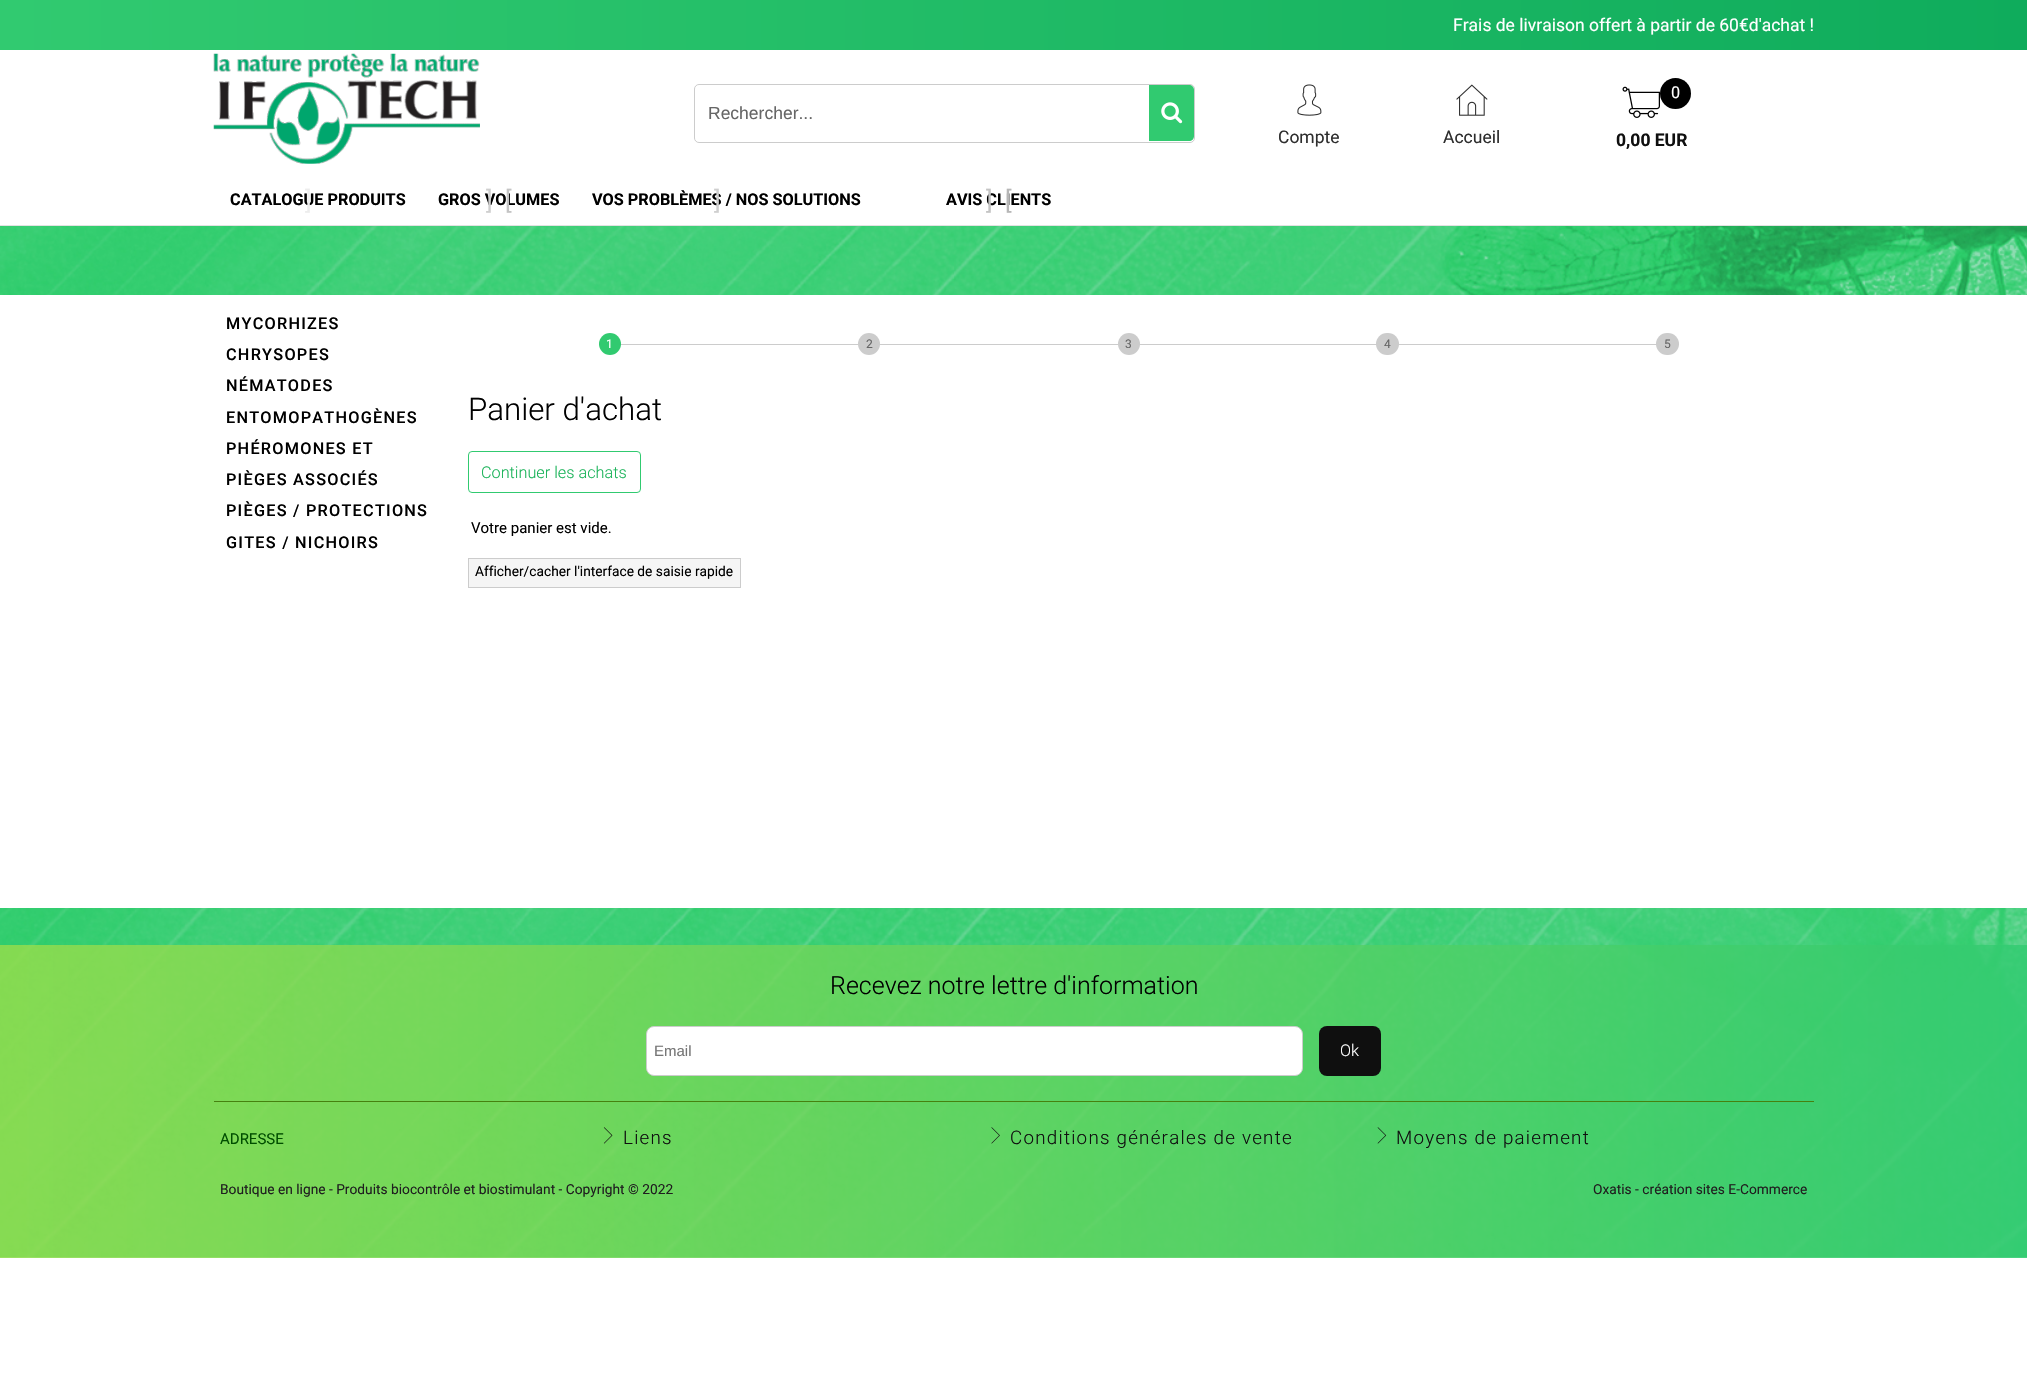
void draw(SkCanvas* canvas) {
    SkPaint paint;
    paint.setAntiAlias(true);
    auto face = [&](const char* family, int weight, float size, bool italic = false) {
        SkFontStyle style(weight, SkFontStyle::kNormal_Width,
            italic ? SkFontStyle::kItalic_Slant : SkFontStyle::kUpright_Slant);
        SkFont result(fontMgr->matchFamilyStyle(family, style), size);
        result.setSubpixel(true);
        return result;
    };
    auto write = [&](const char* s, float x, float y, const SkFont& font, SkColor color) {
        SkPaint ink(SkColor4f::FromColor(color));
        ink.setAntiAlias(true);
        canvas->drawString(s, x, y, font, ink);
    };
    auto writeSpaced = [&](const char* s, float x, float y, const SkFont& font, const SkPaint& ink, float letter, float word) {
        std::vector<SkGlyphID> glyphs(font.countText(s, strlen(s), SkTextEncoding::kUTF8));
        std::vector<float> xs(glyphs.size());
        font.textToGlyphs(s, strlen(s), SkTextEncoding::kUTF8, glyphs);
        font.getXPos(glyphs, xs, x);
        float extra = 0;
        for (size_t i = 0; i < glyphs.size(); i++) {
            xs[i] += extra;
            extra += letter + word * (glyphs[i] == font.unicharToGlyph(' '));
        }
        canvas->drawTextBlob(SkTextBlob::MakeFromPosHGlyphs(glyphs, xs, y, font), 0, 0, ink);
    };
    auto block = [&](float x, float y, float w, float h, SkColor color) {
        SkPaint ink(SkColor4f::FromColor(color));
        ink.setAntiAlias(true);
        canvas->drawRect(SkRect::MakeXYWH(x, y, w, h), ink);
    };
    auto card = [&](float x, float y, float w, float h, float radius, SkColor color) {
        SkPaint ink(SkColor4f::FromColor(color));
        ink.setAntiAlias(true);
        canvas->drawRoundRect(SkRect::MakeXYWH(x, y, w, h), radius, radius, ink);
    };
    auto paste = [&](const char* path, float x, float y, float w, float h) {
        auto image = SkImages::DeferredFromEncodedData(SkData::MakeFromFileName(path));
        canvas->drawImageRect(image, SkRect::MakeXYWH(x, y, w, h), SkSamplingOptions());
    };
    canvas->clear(SK_ColorWHITE);
    paste("pic1.png", 0, 226, 2027, 69);
    paste("pic2.png", 0, 908, 2027, 350);
    {
        const SkColor colors[] = {SkColorSetRGB(15, 172, 92), SkColorSetRGB(49, 202, 112)};
        const float stops[] = {0, 1};
        const SkPoint ends[] = {{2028, 25}, {0, 25}};
        paint.setShader(SkGradientShader::MakeLinear(ends, colors, stops, 2, SkTileMode::kClamp));
        paint.setAlpha(255);
    }
    canvas->drawRect(SkRect::MakeXYWH(0, 0, 2027, 50), paint);
    block(0, 225, 2027, 1, SkColorSetRGB(226, 226, 226));
    auto kFont1 = face("Roboto", 400, 17.5f);
    write("Frais de livraison offert à partir de 60€d'achat !", 1453, 31, kFont1, SK_ColorWHITE);
    paste("pic3.png", 213, 53, 267, 111);
    paint.setStyle(SkPaint::kStroke_Style);
    paint.setStrokeWidth(1);
    paint.setShader(nullptr);
    paint.setColor(SkColorSetRGB(204, 204, 204));
    canvas->drawRoundRect(SkRect::MakeXYWH(694.5f, 84.5f, 500, 58), 4.5f, 4.5f, paint);
    auto kFont2 = face("Liberation Sans", 400, 17.5f);
    write("Rechercher...", 708, 119, kFont2, SkColorSetRGB(102, 102, 102));
    paint.setStyle(SkPaint::kFill_Style);
    paint.setColor(SkColorSetRGB(49, 202, 112));
    canvas->drawPath(SkPathBuilder().moveTo(1149, 85).lineTo(1189, 85).cubicTo(1192, 85, 1194, 87, 1194, 90).lineTo(1194, 136).cubicTo(1194, 139, 1192, 141, 1189, 141).lineTo(1149, 141).close().detach(), paint);
    paste("pic4.png", 1161, 102, 22, 22);
    paste("pic5.png", 1297, 84, 25, 32);
    write("Compte", 1278, 143, kFont1, SkColorSetRGB(46, 46, 46));
    paste("pic6.png", 1456, 84, 32, 32);
    write("Accueil", 1443, 143, kFont1, SkColorSetRGB(46, 46, 46));
    paste("pic7.png", 1622, 86, 38, 32);
    paint.setColor(SK_ColorBLACK);
    canvas->drawCircle(1675.5f, 93.5f, 15.5f, paint);
    auto kFont3 = face("Roboto", 400, 16.25f);
    write("0", 1671, 98, kFont3, SK_ColorWHITE);
    auto kFont4 = face("Roboto", 700, 17.5f);
    write("0,00 EUR", 1616, 146, kFont4, SkColorSetRGB(15, 15, 15));
    auto kFont5 = face("Roboto", 700, 16.25f);
    write("CATALOGUE PRODUITS", 230, 205, kFont5, SK_ColorBLACK);
    auto kFont6 = face("Roboto", 400, 25);
    write("]", 305, 209, kFont6, SkColorSetRGB(237, 237, 237));
    write("GROS VOLUMES", 438, 205, kFont5, SK_ColorBLACK);
    write("]", 486, 209, kFont6, SkColorSetRGB(207, 207, 207));
    write("[", 505, 209, kFont6, SkColorSetRGB(196, 196, 196));
    write("VOS PROBLÈMES / NOS SOLUTIONS", 592, 205, kFont5, SK_ColorBLACK);
    write("]", 714, 209, kFont6, SkColorSetRGB(207, 207, 207));
    write("AVIS CLIENTS", 946, 205, kFont5, SK_ColorBLACK);
    write("]", 986, 209, kFont6, SkColorSetRGB(196, 196, 196));
    write("[", 1005, 209, kFont6, SkColorSetRGB(183, 183, 183));
    auto kFont7 = face("Roboto", 500, 16.25f);
    writeSpaced("MYCORHIZES", 226, 329, kFont7, paint, 1.25f, 0);
    writeSpaced("CHRYSOPES", 226, 360, kFont7, paint, 1.25f, 0);
    writeSpaced("NÉMATODES", 226, 391, kFont7, paint, 1.25f, 0);
    writeSpaced("ENTOMOPATHOGÈNES", 226, 423, kFont7, paint, 1.25f, 0);
    writeSpaced("PHÉROMONES ET", 226, 454, kFont7, paint, 1.25f, 0);
    writeSpaced("PIÈGES ASSOCIÉS", 226, 485, kFont7, paint, 1.25f, 0);
    writeSpaced("PIÈGES / PROTECTIONS", 226, 516, kFont7, paint, 1.25f, 0);
    writeSpaced("GITES / NICHOIRS", 226, 548, kFont7, paint, 1.25f, 0);
    block(599, 344, 1080, 1, SkColorSetRGB(204, 204, 204));
    paint.setColor(SkColorSetRGB(49, 202, 112));
    canvas->drawCircle(610, 344, 11, paint);
    auto kFont8 = face("Roboto", 400, 12);
    write("1", 606, 348, kFont8, SK_ColorWHITE);
    paint.setColor(SkColorSetRGB(204, 204, 204));
    canvas->drawCircle(869, 344, 11, paint);
    write("2", 866, 348, kFont8, SkColorSetRGB(102, 102, 102));
    canvas->drawCircle(1129, 344, 11, paint);
    write("3", 1125, 348, kFont8, SkColorSetRGB(102, 102, 102));
    card(1376, 333, 23, 22, 11, SkColorSetRGB(204, 204, 204));
    write("4", 1384, 348, kFont8, SkColorSetRGB(102, 102, 102));
    card(1656, 333, 23, 22, 11, SkColorSetRGB(204, 204, 204));
    write("5", 1664, 348, kFont8, SkColorSetRGB(102, 102, 102));
    auto kFont9 = face("Roboto", 300, 31.25f);
    write("Panier d'achat", 468, 420, kFont9, SK_ColorBLACK);
    paint.setStyle(SkPaint::kStroke_Style);
    paint.setColor(SkColorSetRGB(49, 202, 112));
    canvas->drawRoundRect(SkRect::MakeXYWH(468.5f, 451.5f, 172, 41), 3.5f, 3.5f, paint);
    auto kFont10 = face("Roboto", 300, 16.25f);
    write("Continuer les achats", 481, 478, kFont10, SkColorSetRGB(26, 179, 89));
    auto kFont11 = face("Roboto", 400, 15);
    write("Votre panier est vide.", 471, 533, kFont11, SK_ColorBLACK);
    paint.setStyle(SkPaint::kFill_Style);
    paint.setColor(SkColorSetRGB(245, 245, 245));
    canvas->drawRect(SkRect::MakeXYWH(468.5f, 558.5f, 272, 29), paint);
    paint.setStyle(SkPaint::kStroke_Style);
    paint.setColor(SkColorSetRGB(204, 204, 204));
    canvas->drawRect(SkRect::MakeXYWH(468.5f, 558.5f, 272, 29), paint);
    auto kFont12 = face("Roboto", 400, 13.75f);
    write("Afficher/cacher l'interface de saisie rapide", 475, 576, kFont12, SK_ColorBLACK);
    paint.setStyle(SkPaint::kFill_Style);
    {
        const SkColor colors[] = {SkColorSetARGB(204, 49, 202, 112), SkColorSetARGB(204, 153, 221, 74)};
        const float stops[] = {0, 1};
        const SkPoint ends[] = {{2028, 1101}, {0, 1101}};
        paint.setShader(SkGradientShader::MakeLinear(ends, colors, stops, 2, SkTileMode::kClamp));
        paint.setAlpha(255);
    }
    canvas->drawRect(SkRect::MakeXYWH(0, 945, 2027, 313), paint);
    block(214, 1101, 1600, 1, SkColorSetRGB(70, 129, 15));
    auto kFont13 = face("Roboto", 300, 25);
    write("Recevez notre lettre d'information", 830, 994, kFont13, SK_ColorBLACK);
    paint.setShader(nullptr);
    paint.setColor(SK_ColorWHITE);
    canvas->drawRoundRect(SkRect::MakeXYWH(646.5f, 1026.5f, 656, 49), 7.5f, 7.5f, paint);
    paint.setStyle(SkPaint::kStroke_Style);
    paint.setColor(SkColorSetRGB(204, 204, 204));
    canvas->drawRoundRect(SkRect::MakeXYWH(646.5f, 1026.5f, 656, 49), 7.5f, 7.5f, paint);
    auto kFont14 = face("Liberation Sans", 400, 15);
    write("Email", 654, 1056, kFont14, SkColorSetRGB(117, 117, 117));
    card(1319, 1026, 62, 50, 8, SkColorSetRGB(15, 15, 15));
    write("Ok", 1340, 1056, kFont10, SK_ColorWHITE);
    write("ADRESSE", 220, 1144, kFont11, SkColorSetRGB(0, 78, 0));
    paste("pic8.png", 603, 1127, 10, 17);
    auto kFont15 = face("Roboto", 300, 18.75f);
    paint.setStyle(SkPaint::kFill_Style);
    paint.setColor(SkColorSetRGB(15, 15, 15));
    writeSpaced("Liens", 623, 1144, kFont15, paint, 1.25f, 0);
    paste("pic9.png", 991, 1127, 9, 17);
    writeSpaced("Conditions générales de vente", 1010, 1144, kFont15, paint, 1.25f, 0);
    paste("pic10.png", 1377, 1127, 10, 17);
    writeSpaced("Moyens de paiement", 1396, 1144, kFont15, paint, 1.25f, 0);
    write("Boutique en ligne - Produits biocontrôle et biostimulant - Copyright © 2022", 220, 1194, kFont12, SkColorSetRGB(31, 31, 31));
    write("Oxatis - création sites E-Commerce", 1593, 1194, kFont12, SkColorSetRGB(31, 31, 31));
}
